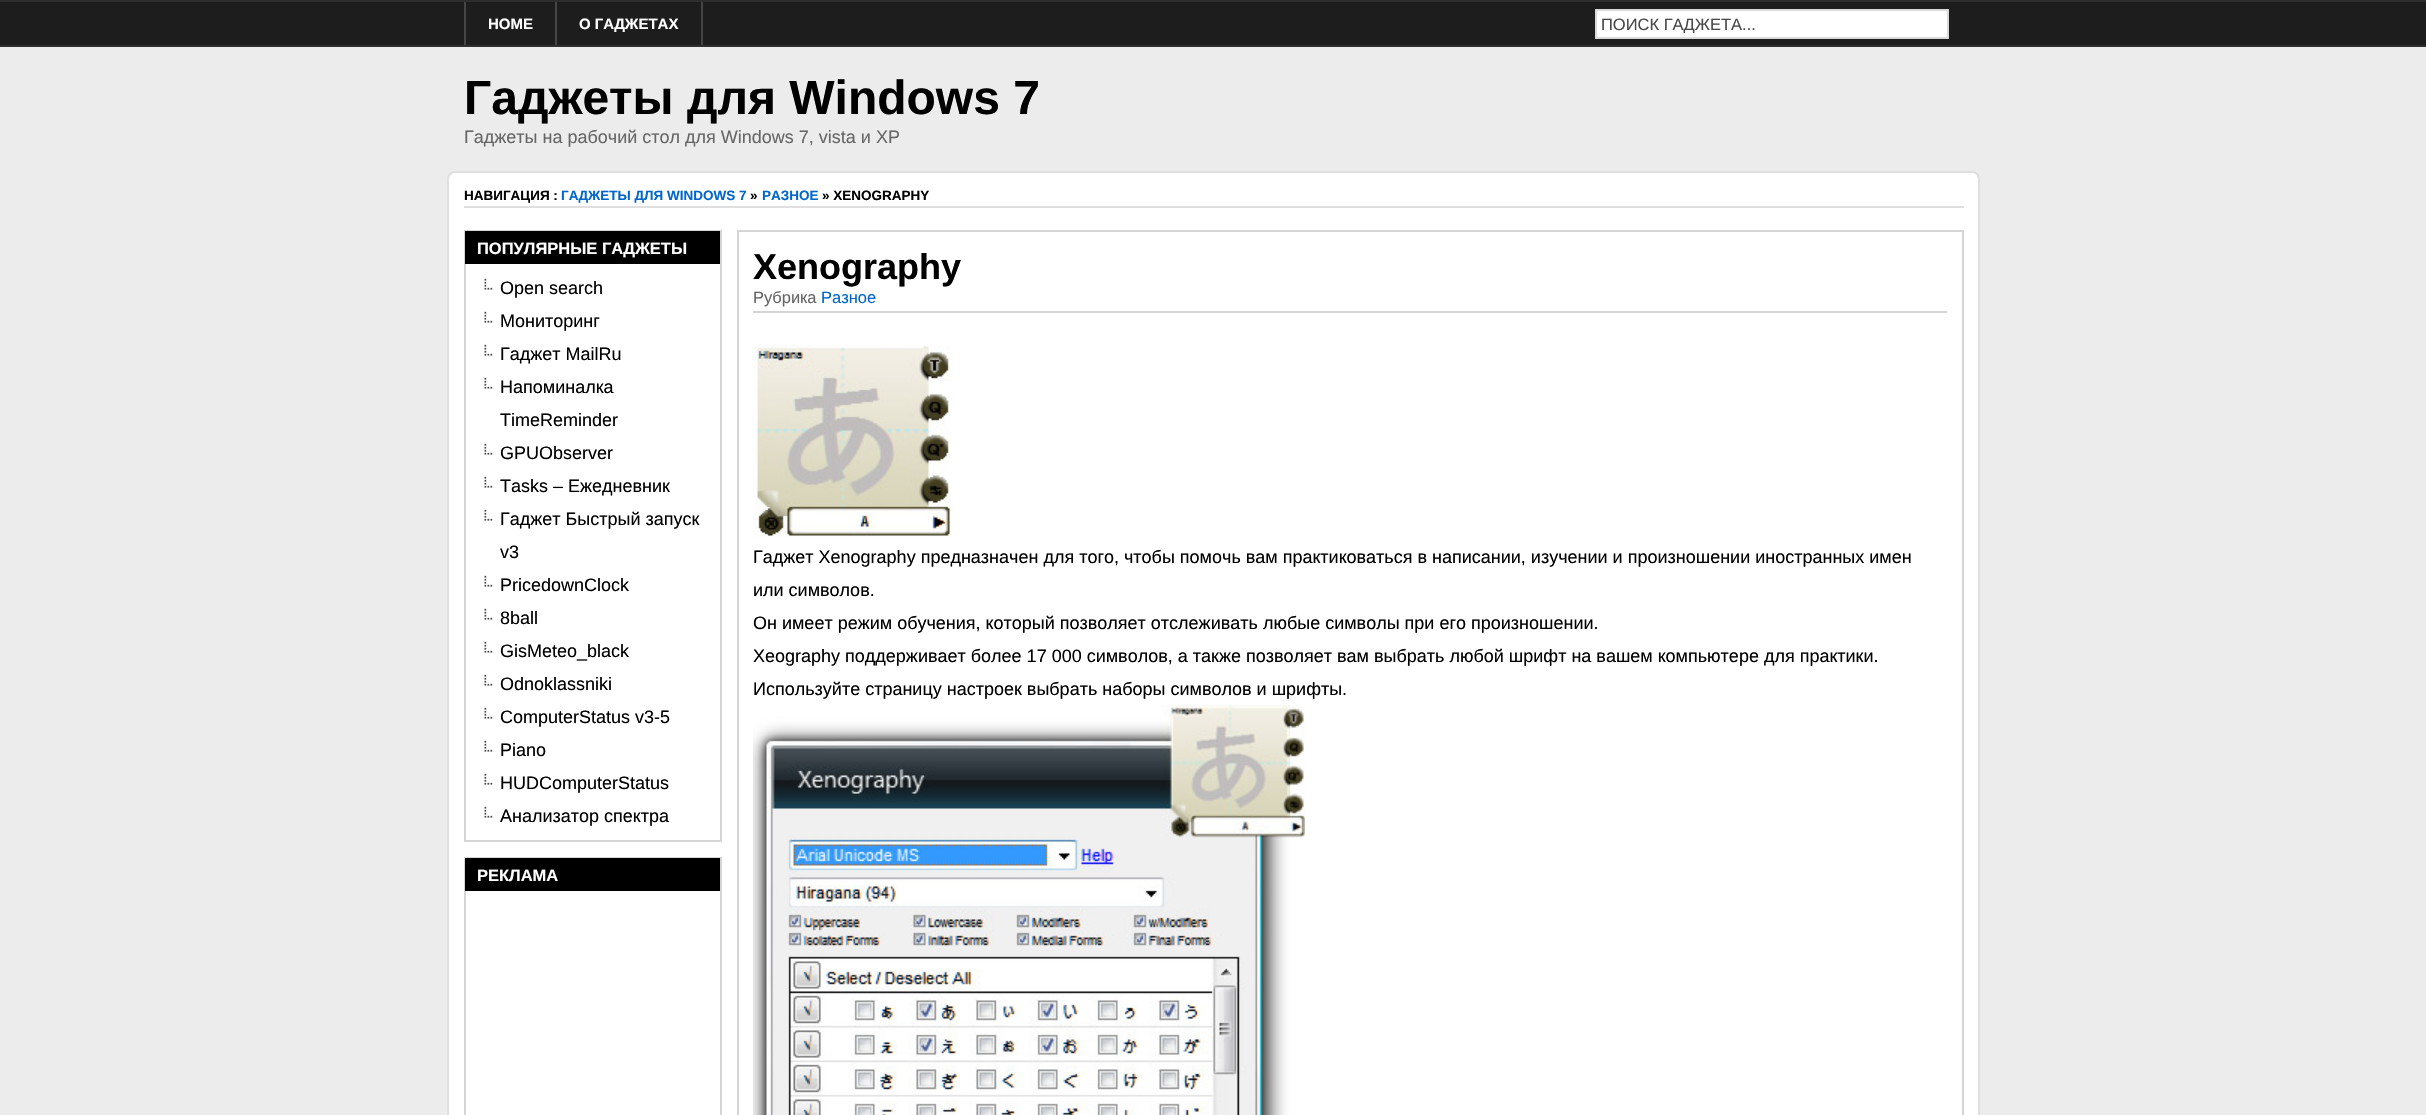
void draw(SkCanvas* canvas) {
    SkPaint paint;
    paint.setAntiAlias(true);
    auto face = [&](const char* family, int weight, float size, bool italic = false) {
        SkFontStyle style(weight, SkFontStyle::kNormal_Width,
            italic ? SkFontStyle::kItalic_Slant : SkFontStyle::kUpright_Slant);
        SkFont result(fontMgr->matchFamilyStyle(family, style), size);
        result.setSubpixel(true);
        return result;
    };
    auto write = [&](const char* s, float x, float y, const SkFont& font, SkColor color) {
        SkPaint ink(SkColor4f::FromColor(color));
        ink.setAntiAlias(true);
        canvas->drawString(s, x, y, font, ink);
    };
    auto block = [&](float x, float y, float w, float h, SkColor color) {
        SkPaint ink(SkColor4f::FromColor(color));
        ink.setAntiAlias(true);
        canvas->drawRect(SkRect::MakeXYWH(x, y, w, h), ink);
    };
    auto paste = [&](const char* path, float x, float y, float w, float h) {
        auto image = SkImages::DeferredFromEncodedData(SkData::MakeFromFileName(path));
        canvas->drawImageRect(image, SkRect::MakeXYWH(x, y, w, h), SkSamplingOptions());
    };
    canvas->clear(SkColorSetRGB(236, 236, 236));
    block(0, 2, 2426, 43, SkColorSetRGB(29, 29, 29));
    block(0, 0, 2426, 2, SkColorSetRGB(46, 46, 46));
    block(0, 45, 2426, 2, SkColorSetRGB(46, 46, 46));
    block(464, 2, 2, 43, SkColorSetRGB(69, 69, 69));
    block(555, 2, 2, 43, SkColorSetRGB(69, 69, 69));
    auto kFont1 = face("Liberation Sans", 700, 15);
    write("HOME", 488, 29, kFont1, SK_ColorWHITE);
    block(701, 2, 2, 43, SkColorSetRGB(69, 69, 69));
    write("О ГАДЖЕТАХ", 579, 29, kFont1, SK_ColorWHITE);
    paint.setColor(SK_ColorWHITE);
    canvas->drawRect(SkRect::MakeXYWH(1596, 10, 352, 28), paint);
    paint.setStyle(SkPaint::kStroke_Style);
    paint.setStrokeWidth(2);
    paint.setColor(SkColorSetRGB(218, 218, 218));
    canvas->drawRect(SkRect::MakeXYWH(1596, 10, 352, 28), paint);
    canvas->save();
    canvas->clipRect(SkRect::MakeXYWH(1601, 15, 342, 18));
    auto kFont2 = face("Liberation Sans", 400, 16.5f);
    write("ПОИСК ГАДЖЕТА...", 1601, 30, kFont2, SkColorSetRGB(73, 73, 73));
    canvas->restore();
    auto kFont3 = face("Liberation Sans", 700, 48);
    write("Гаджеты для Windows 7", 464, 114, kFont3, SK_ColorBLACK);
    auto kFont4 = face("Liberation Sans", 400, 18);
    write("Гаджеты на рабочий стол для Windows 7, vista и XP", 464, 143, kFont4, SkColorSetRGB(102, 102, 102));
    paint.setStyle(SkPaint::kFill_Style);
    paint.setColor(SK_ColorWHITE);
    canvas->drawRoundRect(SkRect::MakeXYWH(448, 172, 1531, 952), 7, 7, paint);
    paint.setStyle(SkPaint::kStroke_Style);
    paint.setColor(SkColorSetRGB(223, 223, 223));
    canvas->drawRoundRect(SkRect::MakeXYWH(448, 172, 1531, 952), 7, 7, paint);
    block(464, 206, 1500, 2, SkColorSetRGB(223, 223, 223));
    auto kFont5 = face("Liberation Sans", 700, 13.5f);
    write("НАВИГАЦИЯ :", 464, 200, kFont5, SK_ColorBLACK);
    write("ГАДЖЕТЫ ДЛЯ WINDOWS 7", 561, 200, kFont5, SkColorSetRGB(0, 102, 204));
    write("»", 750, 200, kFont5, SK_ColorBLACK);
    write("РАЗНОЕ", 762, 200, kFont5, SkColorSetRGB(0, 102, 204));
    write("» XENOGRAPHY", 822, 200, kFont5, SK_ColorBLACK);
    paint.setColor(SkColorSetRGB(213, 213, 213));
    canvas->drawRect(SkRect::MakeXYWH(465, 231, 256, 610), paint);
    block(465, 231, 255, 33, SK_ColorBLACK);
    auto kFont6 = face("Liberation Sans", 700, 16.5f);
    write("ПОПУЛЯРНЫЕ ГАДЖЕТЫ", 477, 254, kFont6, SK_ColorWHITE);
    paste("pic1.png", 484, 278, 9, 12);
    write("Open search", 500, 294, kFont4, SK_ColorBLACK);
    paste("pic1.png", 484, 311, 9, 12);
    write("Мониторинг", 500, 327, kFont4, SK_ColorBLACK);
    paste("pic1.png", 484, 344, 9, 12);
    write("Гаджет MailRu", 500, 360, kFont4, SK_ColorBLACK);
    paste("pic1.png", 484, 377, 9, 12);
    write("Напоминалка", 500, 393, kFont4, SK_ColorBLACK);
    write("TimeReminder", 500, 426, kFont4, SK_ColorBLACK);
    paste("pic1.png", 484, 443, 9, 12);
    write("GPUObserver", 500, 459, kFont4, SK_ColorBLACK);
    paste("pic1.png", 484, 476, 9, 12);
    write("Tasks – Ежедневник", 500, 492, kFont4, SK_ColorBLACK);
    paste("pic1.png", 484, 509, 9, 12);
    write("Гаджет Быстрый запуск", 500, 525, kFont4, SK_ColorBLACK);
    write("v3", 500, 558, kFont4, SK_ColorBLACK);
    paste("pic1.png", 484, 575, 9, 12);
    write("PricedownClock", 500, 591, kFont4, SK_ColorBLACK);
    paste("pic1.png", 484, 608, 9, 12);
    write("8ball", 500, 624, kFont4, SK_ColorBLACK);
    paste("pic1.png", 484, 641, 9, 12);
    write("GisMeteo_black", 500, 657, kFont4, SK_ColorBLACK);
    paste("pic1.png", 484, 674, 9, 12);
    write("Odnoklassniki", 500, 690, kFont4, SK_ColorBLACK);
    paste("pic1.png", 484, 707, 9, 12);
    write("ComputerStatus v3-5", 500, 723, kFont4, SK_ColorBLACK);
    paste("pic1.png", 484, 740, 9, 12);
    write("Piano", 500, 756, kFont4, SK_ColorBLACK);
    paste("pic1.png", 484, 773, 9, 12);
    write("HUDComputerStatus", 500, 789, kFont4, SK_ColorBLACK);
    paste("pic1.png", 484, 806, 9, 12);
    write("Анализатор спектра", 500, 822, kFont4, SK_ColorBLACK);
    canvas->drawRect(SkRect::MakeXYWH(465, 858, 256, 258), paint);
    block(465, 858, 255, 33, SK_ColorBLACK);
    write("РЕКЛАМА", 477, 881, kFont6, SK_ColorWHITE);
    canvas->drawRect(SkRect::MakeXYWH(738, 231, 1225, 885), paint);
    auto kFont7 = face("Liberation Sans", 700, 36);
    write("Xenography", 753, 279, kFont7, SK_ColorBLACK);
    block(753, 311, 1194, 2, SkColorSetRGB(213, 213, 213));
    write("Рубрика", 753, 303, kFont2, SkColorSetRGB(102, 102, 102));
    write("Разное", 821, 303, kFont2, SkColorSetRGB(0, 102, 204));
    paste("pic2.png", 753, 345, 200, 192);
    write("Гаджет Xenography предназначен для того, чтобы помочь вам практиковаться в написании, изучении и произношении иностранных имен", 753, 563, kFont4, SK_ColorBLACK);
    write("или символов.", 753, 596, kFont4, SK_ColorBLACK);
    write("Он имеет режим обучения, который позволяет отслеживать любые символы при его произношении.", 753, 629, kFont4, SK_ColorBLACK);
    write("Xeography поддерживает более 17 000 символов, а также позволяет вам выбрать любой шрифт на вашем компьютере для практики.", 753, 662, kFont4, SK_ColorBLACK);
    write("Используйте страницу настроек выбрать наборы символов и шрифты.", 753, 695, kFont4, SK_ColorBLACK);
    paste("pic3.png", 753, 705, 552, 410);
}
